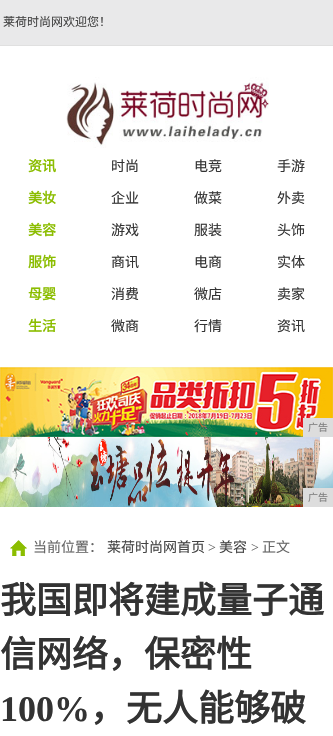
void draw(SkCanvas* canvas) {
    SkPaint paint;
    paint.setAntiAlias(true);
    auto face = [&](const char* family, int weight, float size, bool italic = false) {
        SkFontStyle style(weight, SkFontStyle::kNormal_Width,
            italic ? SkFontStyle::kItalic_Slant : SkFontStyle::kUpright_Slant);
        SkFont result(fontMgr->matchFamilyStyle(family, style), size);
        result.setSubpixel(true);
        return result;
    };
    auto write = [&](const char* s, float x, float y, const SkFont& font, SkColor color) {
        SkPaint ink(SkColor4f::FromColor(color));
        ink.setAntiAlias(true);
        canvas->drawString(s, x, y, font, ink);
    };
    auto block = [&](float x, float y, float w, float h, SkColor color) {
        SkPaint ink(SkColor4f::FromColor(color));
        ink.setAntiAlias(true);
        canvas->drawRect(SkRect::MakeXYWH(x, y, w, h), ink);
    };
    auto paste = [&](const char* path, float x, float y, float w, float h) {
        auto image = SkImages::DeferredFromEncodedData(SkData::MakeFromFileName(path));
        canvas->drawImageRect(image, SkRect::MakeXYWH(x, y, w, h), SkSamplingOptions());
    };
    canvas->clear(SK_ColorWHITE);
    block(0, 0, 333, 45, SkColorSetRGB(233, 233, 234));
    block(0, 45, 333, 1, SkColorSetRGB(224, 224, 224));
    auto kFont1 = face("Noto Sans CJK SC", 400, 12);
    write("莱荷时尚网欢迎您！", 3, 26, kFont1, SkColorSetRGB(68, 68, 68));
    paste("pic1.png", 66, 77, 203, 71);
    auto kFont2 = face("Noto Sans CJK SC", 700, 14);
    write("资讯", 28, 171, kFont2, SkColorSetRGB(139, 189, 0));
    auto kFont3 = face("Noto Sans CJK SC", 400, 14);
    write("时尚", 111, 171, kFont3, SkColorSetRGB(51, 51, 51));
    write("电竞", 194, 171, kFont3, SkColorSetRGB(51, 51, 51));
    write("手游", 277, 171, kFont3, SkColorSetRGB(51, 51, 51));
    write("美妆", 28, 203, kFont2, SkColorSetRGB(139, 189, 0));
    write("企业", 111, 203, kFont3, SkColorSetRGB(51, 51, 51));
    write("做菜", 194, 203, kFont3, SkColorSetRGB(51, 51, 51));
    write("外卖", 277, 203, kFont3, SkColorSetRGB(51, 51, 51));
    write("美容", 28, 235, kFont2, SkColorSetRGB(139, 189, 0));
    write("游戏", 111, 235, kFont3, SkColorSetRGB(51, 51, 51));
    write("服装", 194, 235, kFont3, SkColorSetRGB(51, 51, 51));
    write("头饰", 277, 235, kFont3, SkColorSetRGB(51, 51, 51));
    write("服饰", 28, 267, kFont2, SkColorSetRGB(139, 189, 0));
    write("商讯", 111, 267, kFont3, SkColorSetRGB(51, 51, 51));
    write("电商", 194, 267, kFont3, SkColorSetRGB(51, 51, 51));
    write("实体", 277, 267, kFont3, SkColorSetRGB(51, 51, 51));
    write("母婴", 28, 299, kFont2, SkColorSetRGB(139, 189, 0));
    write("消费", 111, 299, kFont3, SkColorSetRGB(51, 51, 51));
    write("微店", 194, 299, kFont3, SkColorSetRGB(51, 51, 51));
    write("卖家", 277, 299, kFont3, SkColorSetRGB(51, 51, 51));
    write("生活", 28, 331, kFont2, SkColorSetRGB(139, 189, 0));
    write("微商", 111, 331, kFont3, SkColorSetRGB(51, 51, 51));
    write("行情", 194, 331, kFont3, SkColorSetRGB(51, 51, 51));
    write("资讯", 277, 331, kFont3, SkColorSetRGB(51, 51, 51));
    paste("pic2.png", 0, 367, 333, 70);
    block(303, 418, 30, 19, SkColorSetRGB(221, 221, 221));
    auto kFont4 = face("Noto Sans CJK SC", 400, 10);
    write("广告", 308, 431, kFont4, SkColorSetRGB(128, 128, 128));
    paste("pic3.png", 0, 437, 333, 70);
    block(303, 488, 30, 19, SkColorSetRGB(221, 221, 221));
    write("广告", 308, 501, kFont4, SkColorSetRGB(128, 128, 128));
    paste("pic4.png", 10, 540, 17, 16);
    write("当前位置：", 33, 552, kFont3, SkColorSetRGB(102, 102, 102));
    write("莱荷时尚网首页", 107, 552, kFont3, SkColorSetRGB(68, 68, 68));
    auto kFont5 = face("Liberation Serif", 400, 14);
    write(">", 208, 552, kFont5, SkColorSetRGB(102, 102, 102));
    write("美容", 219, 552, kFont3, SkColorSetRGB(68, 68, 68));
    write(">", 251, 552, kFont5, SkColorSetRGB(102, 102, 102));
    write("正文", 262, 552, kFont3, SkColorSetRGB(102, 102, 102));
    auto kFont6 = face("Noto Sans CJK SC", 700, 36);
    write("我国即将建成量子通", 0, 613, kFont6, SkColorSetRGB(51, 51, 51));
    write("信网络，保密性", 0, 667, kFont6, SkColorSetRGB(51, 51, 51));
    auto kFont7 = face("Liberation Serif", 700, 36);
    write("100%", 0, 721, kFont7, SkColorSetRGB(51, 51, 51));
    write("，无人能够破", 90, 721, kFont6, SkColorSetRGB(51, 51, 51));
}
